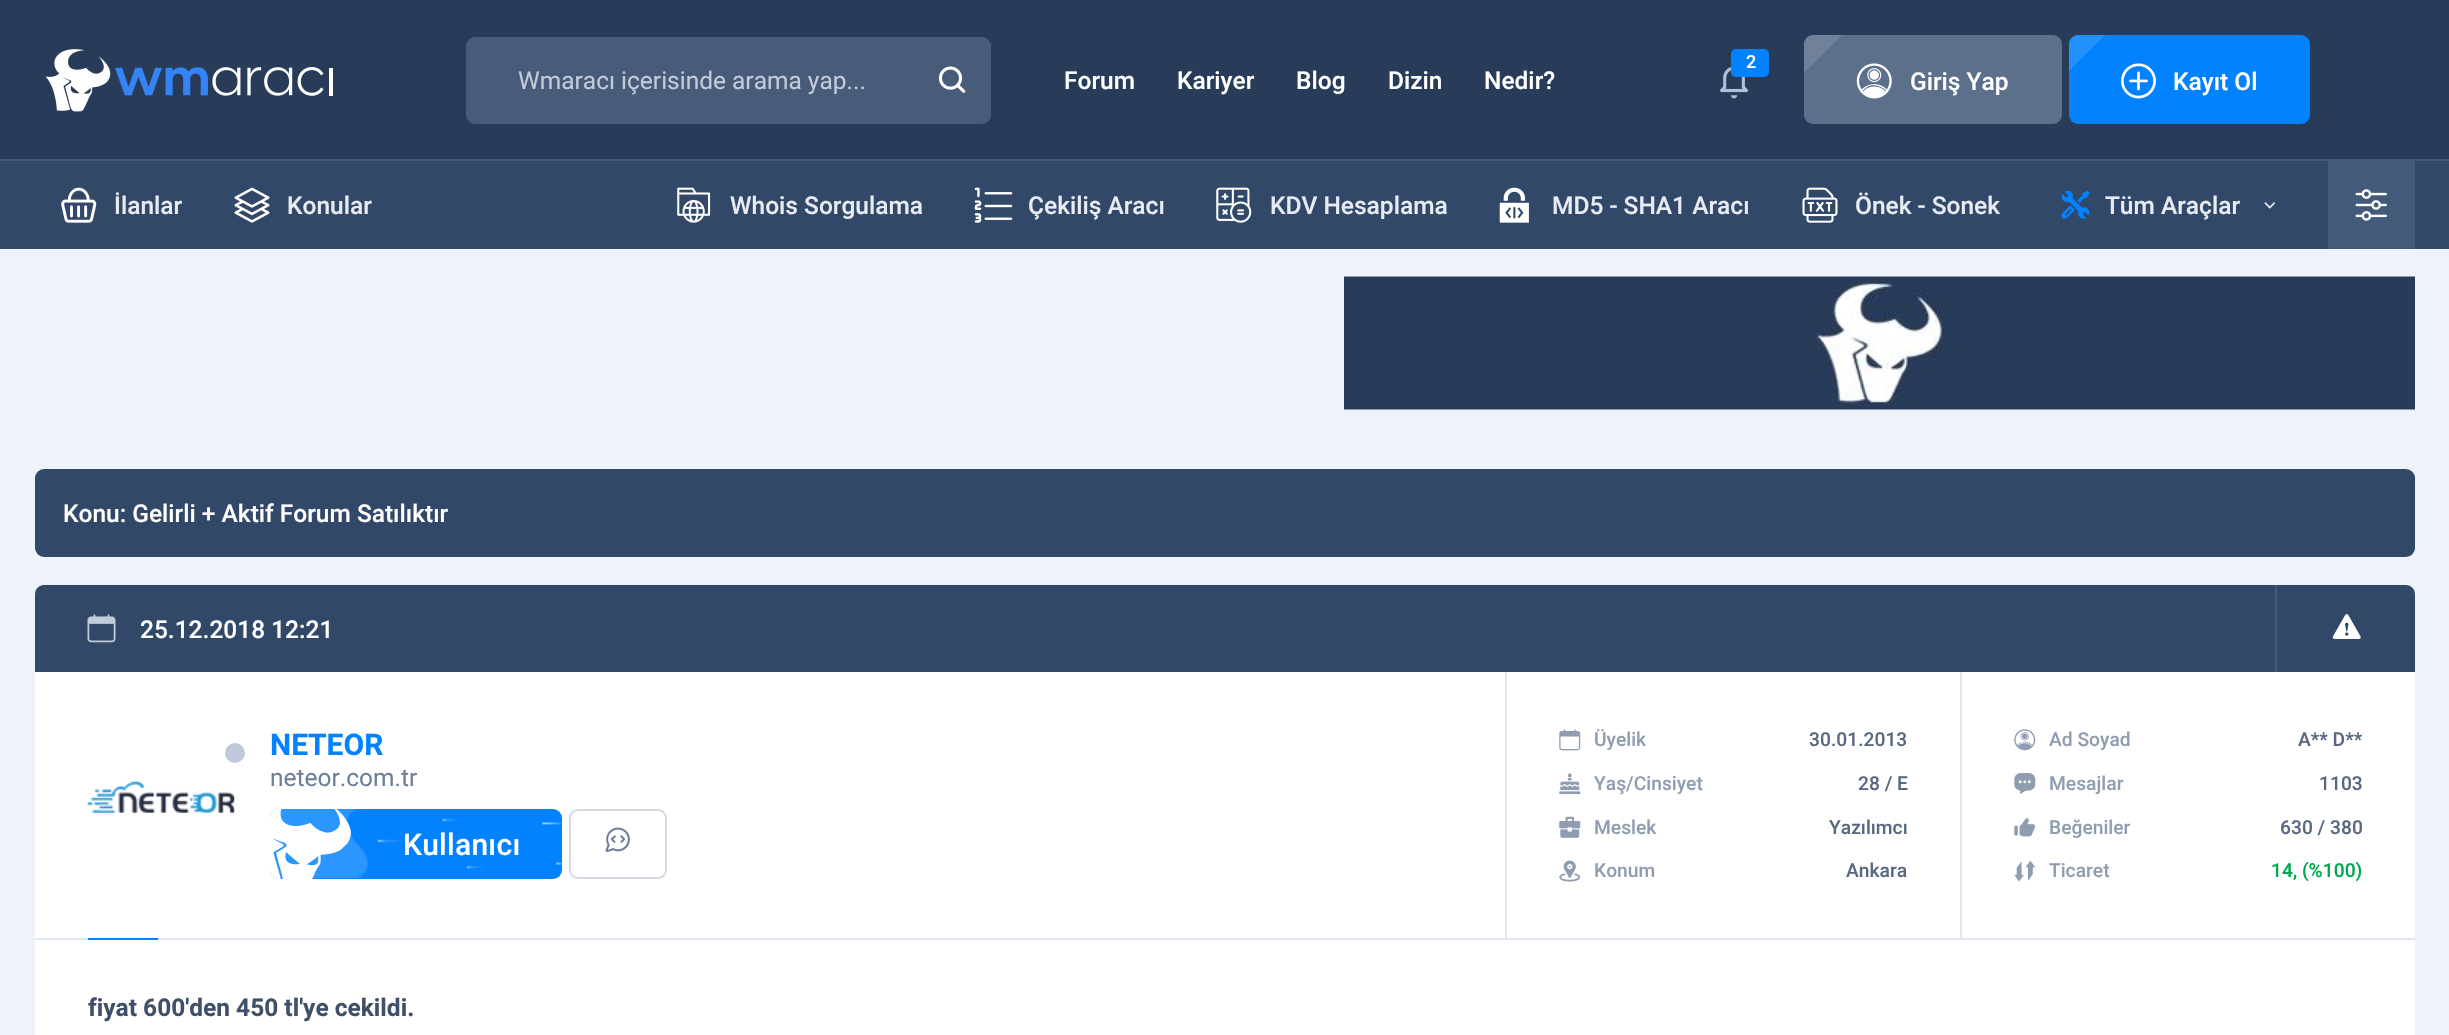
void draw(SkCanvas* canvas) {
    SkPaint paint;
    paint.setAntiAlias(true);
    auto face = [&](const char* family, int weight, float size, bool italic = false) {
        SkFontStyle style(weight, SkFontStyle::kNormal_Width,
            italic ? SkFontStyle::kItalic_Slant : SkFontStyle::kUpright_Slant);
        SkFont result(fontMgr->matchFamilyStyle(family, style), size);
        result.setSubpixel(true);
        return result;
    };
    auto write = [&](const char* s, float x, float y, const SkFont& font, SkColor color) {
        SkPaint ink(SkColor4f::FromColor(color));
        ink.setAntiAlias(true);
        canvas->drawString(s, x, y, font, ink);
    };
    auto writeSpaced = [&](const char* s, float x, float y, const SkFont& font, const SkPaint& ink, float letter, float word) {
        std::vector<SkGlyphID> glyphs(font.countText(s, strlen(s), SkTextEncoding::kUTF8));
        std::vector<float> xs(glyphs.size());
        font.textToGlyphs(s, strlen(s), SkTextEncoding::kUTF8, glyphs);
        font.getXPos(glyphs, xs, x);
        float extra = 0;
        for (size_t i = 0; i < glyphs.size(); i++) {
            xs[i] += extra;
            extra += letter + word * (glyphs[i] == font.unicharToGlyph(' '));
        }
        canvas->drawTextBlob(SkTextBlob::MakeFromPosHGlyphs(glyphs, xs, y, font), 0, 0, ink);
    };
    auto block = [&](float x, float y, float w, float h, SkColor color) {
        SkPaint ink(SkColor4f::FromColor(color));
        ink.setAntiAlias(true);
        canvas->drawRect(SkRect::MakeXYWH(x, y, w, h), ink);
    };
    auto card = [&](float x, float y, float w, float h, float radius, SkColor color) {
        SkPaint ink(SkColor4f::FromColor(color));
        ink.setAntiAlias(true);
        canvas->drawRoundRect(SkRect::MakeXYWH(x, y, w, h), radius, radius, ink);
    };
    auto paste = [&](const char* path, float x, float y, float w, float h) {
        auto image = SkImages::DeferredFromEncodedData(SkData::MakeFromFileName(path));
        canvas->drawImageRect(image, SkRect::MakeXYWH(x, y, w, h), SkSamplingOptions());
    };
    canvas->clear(SkColorSetRGB(238, 243, 250));
    block(0, 0, 2449, 159, SkColorSetRGB(40, 60, 90));
    block(0, 159, 2449, 2, SkColorSetRGB(68, 90, 123));
    paste("pic1.png", 45, 49, 288, 63);
    card(466, 37, 525, 87, 9, SkColorSetRGB(72, 91, 120));
    auto kFont1 = face("Roboto", 400, 24.5f);
    write("Wmaracı içerisinde arama yap...", 518, 89, kFont1, SkColorSetRGB(194, 203, 216));
    paste("pic2.png", 938, 66, 28, 27);
    auto kFont2 = face("Roboto", 500, 24.5f);
    write("Forum", 1064, 89, kFont2, SK_ColorWHITE);
    write("Kariyer", 1177, 89, kFont2, SK_ColorWHITE);
    write("Blog", 1296, 89, kFont2, SK_ColorWHITE);
    write("Dizin", 1388, 89, kFont2, SK_ColorWHITE);
    write("Nedir?", 1484, 89, kFont2, SK_ColorWHITE);
    paste("pic3.png", 1720, 67, 28, 32);
    card(1731, 49, 38, 28, 5, SkColorSetRGB(3, 130, 255));
    auto kFont3 = face("Roboto", 500, 18);
    paint.setColor(SK_ColorWHITE);
    writeSpaced("2", 1746, 68, kFont3, paint, -1, 0);
    card(1804, 35, 258, 89, 9, SkColorSetRGB(92, 111, 139));
    paint.setColor(SkColorSetARGB(31, 255, 255, 255));
    canvas->drawPath(SkPathBuilder().moveTo(1813, 35).cubicTo(1808, 35, 1804, 39, 1804, 44).lineTo(1804, 71).lineTo(1805, 72).lineTo(1842, 35).close().detach(), paint);
    paste("pic4.png", 1856, 63, 36, 36);
    write("Giriş Yap", 1910, 90, kFont2, SK_ColorWHITE);
    card(2069, 35, 241, 89, 9, SkColorSetRGB(3, 130, 255));
    canvas->drawPath(SkPathBuilder().moveTo(2078, 35).cubicTo(2073, 35, 2069, 39, 2069, 44).lineTo(2069, 71).lineTo(2105, 35).close().detach(), paint);
    paste("pic5.png", 2121, 63, 35, 36);
    write("Kayıt Ol", 2173, 90, kFont2, SK_ColorWHITE);
    block(0, 161, 2449, 88, SkColorSetRGB(50, 72, 105));
    paste("pic6.png", 61, 187, 36, 36);
    write("İlanlar", 114, 214, kFont2, SkColorSetRGB(232, 236, 242));
    paste("pic7.png", 234, 187, 36, 36);
    write("Konular", 287, 214, kFont2, SkColorSetRGB(232, 236, 242));
    paste("pic8.png", 677, 187, 34, 36);
    write("Whois Sorgulama", 730, 214, kFont2, SkColorSetRGB(232, 236, 242));
    paste("pic9.png", 974, 187, 39, 36);
    write("Çekiliş Aracı", 1028, 214, kFont2, SkColorSetRGB(232, 236, 242));
    paste("pic10.png", 1216, 187, 36, 36);
    write("KDV Hesaplama", 1270, 214, kFont2, SkColorSetRGB(232, 236, 242));
    paste("pic11.png", 1499, 187, 30, 36);
    write("MD5 - SHA1 Aracı", 1552, 214, kFont2, SkColorSetRGB(232, 236, 242));
    paste("pic12.png", 1802, 187, 36, 36);
    write("Önek - Sonek", 1855, 214, kFont2, SkColorSetRGB(232, 236, 242));
    paste("pic13.png", 2061, 190, 29, 29);
    write("Tüm Araçlar", 2105, 214, kFont2, SkColorSetRGB(232, 236, 242));
    paste("pic14.png", 2264, 202, 11, 7);
    block(2328, 161, 87, 88, SkColorSetRGB(68, 90, 123));
    paste("pic15.png", 2355, 189, 32, 32);
    paste("pic16.png", 1344, 276, 1071, 134);
    card(35, 469, 2380, 88, 9, SkColorSetRGB(50, 72, 105));
    write("Konu: Gelirli + Aktif Forum Satılıktır", 63, 522, kFont2, SK_ColorWHITE);
    card(35, 585, 2380, 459, 9, SK_ColorWHITE);
    paint.setColor(SkColorSetRGB(50, 72, 105));
    canvas->drawPath(SkPathBuilder().moveTo(44, 585).lineTo(2406, 585).cubicTo(2411, 585, 2415, 589, 2415, 594).lineTo(2415, 672).lineTo(35, 672).lineTo(35, 594).cubicTo(35, 589, 39, 585, 44, 585).close().detach(), paint);
    paste("pic17.png", 87, 614, 29, 29);
    write("25.12.2018 12:21", 140, 638, kFont2, SK_ColorWHITE);
    block(2275, 585, 2, 87, SkColorSetRGB(68, 90, 123));
    paste("pic18.png", 2332, 614, 29, 25);
    block(35, 938, 2380, 2, SkColorSetRGB(224, 230, 237));
    paint.setColor(SkColorSetRGB(191, 201, 217));
    canvas->drawCircle(235, 753, 12, paint);
    paint.setStyle(SkPaint::kStroke_Style);
    paint.setStrokeWidth(4);
    paint.setColor(SK_ColorWHITE);
    canvas->drawCircle(235, 753, 12, paint);
    auto kFont4 = face("Roboto", 700, 30);
    write("NETEOR", 270, 755, kFont4, SkColorSetRGB(3, 130, 255));
    paste("pic19.png", 87, 781, 148, 32);
    write("neteor.com.tr", 270, 786, kFont1, SkColorSetRGB(110, 127, 153));
    card(270, 809, 292, 70, 9, SkColorSetRGB(3, 130, 255));
    paste("pic20.png", 270, 809, 292, 70);
    paste("pic21.png", 270, 809, 81, 70);
    auto kFont5 = face("Roboto", 500, 30);
    paint.setStyle(SkPaint::kFill_Style);
    writeSpaced("Kullanıcı", 403, 855, kFont5, paint, 0.25f, 0);
    paint.setStyle(SkPaint::kStroke_Style);
    paint.setStrokeWidth(2);
    paint.setColor(SkColorSetRGB(213, 219, 226));
    canvas->drawRoundRect(SkRect::MakeXYWH(570, 810, 96, 68), 8, 8, paint);
    paste("pic22.png", 605, 827, 25, 25);
    block(1505, 672, 2, 266, SkColorSetRGB(224, 230, 237));
    paste("pic23.png", 1559, 729, 22, 22);
    auto kFont6 = face("Roboto", 500, 19.25f);
    write("Üyelik", 1594, 746, kFont6, SkColorSetRGB(144, 157, 177));
    write("30.01.2013", 1809, 746, kFont6, SkColorSetRGB(89, 104, 128));
    paste("pic24.png", 1559, 773, 22, 22);
    write("Yaş/Cinsiyet", 1594, 790, kFont6, SkColorSetRGB(144, 157, 177));
    write("28 / E", 1858, 790, kFont6, SkColorSetRGB(89, 104, 128));
    paste("pic25.png", 1559, 816, 22, 22);
    write("Meslek", 1594, 834, kFont6, SkColorSetRGB(144, 157, 177));
    write("Yazılımcı", 1829, 834, kFont6, SkColorSetRGB(89, 104, 128));
    paste("pic26.png", 1559, 860, 22, 22);
    write("Konum", 1594, 877, kFont6, SkColorSetRGB(144, 157, 177));
    write("Ankara", 1846, 877, kFont6, SkColorSetRGB(89, 104, 128));
    block(1960, 672, 2, 266, SkColorSetRGB(224, 230, 237));
    paste("pic27.png", 2014, 729, 22, 22);
    write("Ad Soyad", 2049, 746, kFont6, SkColorSetRGB(144, 157, 177));
    write("A** D**", 2298, 746, kFont6, SkColorSetRGB(89, 104, 128));
    paste("pic28.png", 2014, 773, 22, 21);
    write("Mesajlar", 2049, 790, kFont6, SkColorSetRGB(144, 157, 177));
    write("1103", 2319, 790, kFont6, SkColorSetRGB(89, 104, 128));
    paste("pic29.png", 2014, 818, 21, 19);
    write("Beğeniler", 2049, 834, kFont6, SkColorSetRGB(144, 157, 177));
    write("630 / 380", 2280, 834, kFont6, SkColorSetRGB(89, 104, 128));
    paste("pic30.png", 2014, 860, 22, 22);
    write("Ticaret", 2049, 877, kFont6, SkColorSetRGB(144, 157, 177));
    write("14, (%100)", 2271, 877, kFont6, SkColorSetRGB(0, 169, 78));
    block(88, 938, 70, 2, SkColorSetRGB(3, 130, 255));
    auto kFont7 = face("Roboto", 700, 24.5f);
    write("fiyat 600'den 450 tl'ye cekildi.", 88, 1016, kFont7, SkColorSetRGB(64, 80, 104));
}
